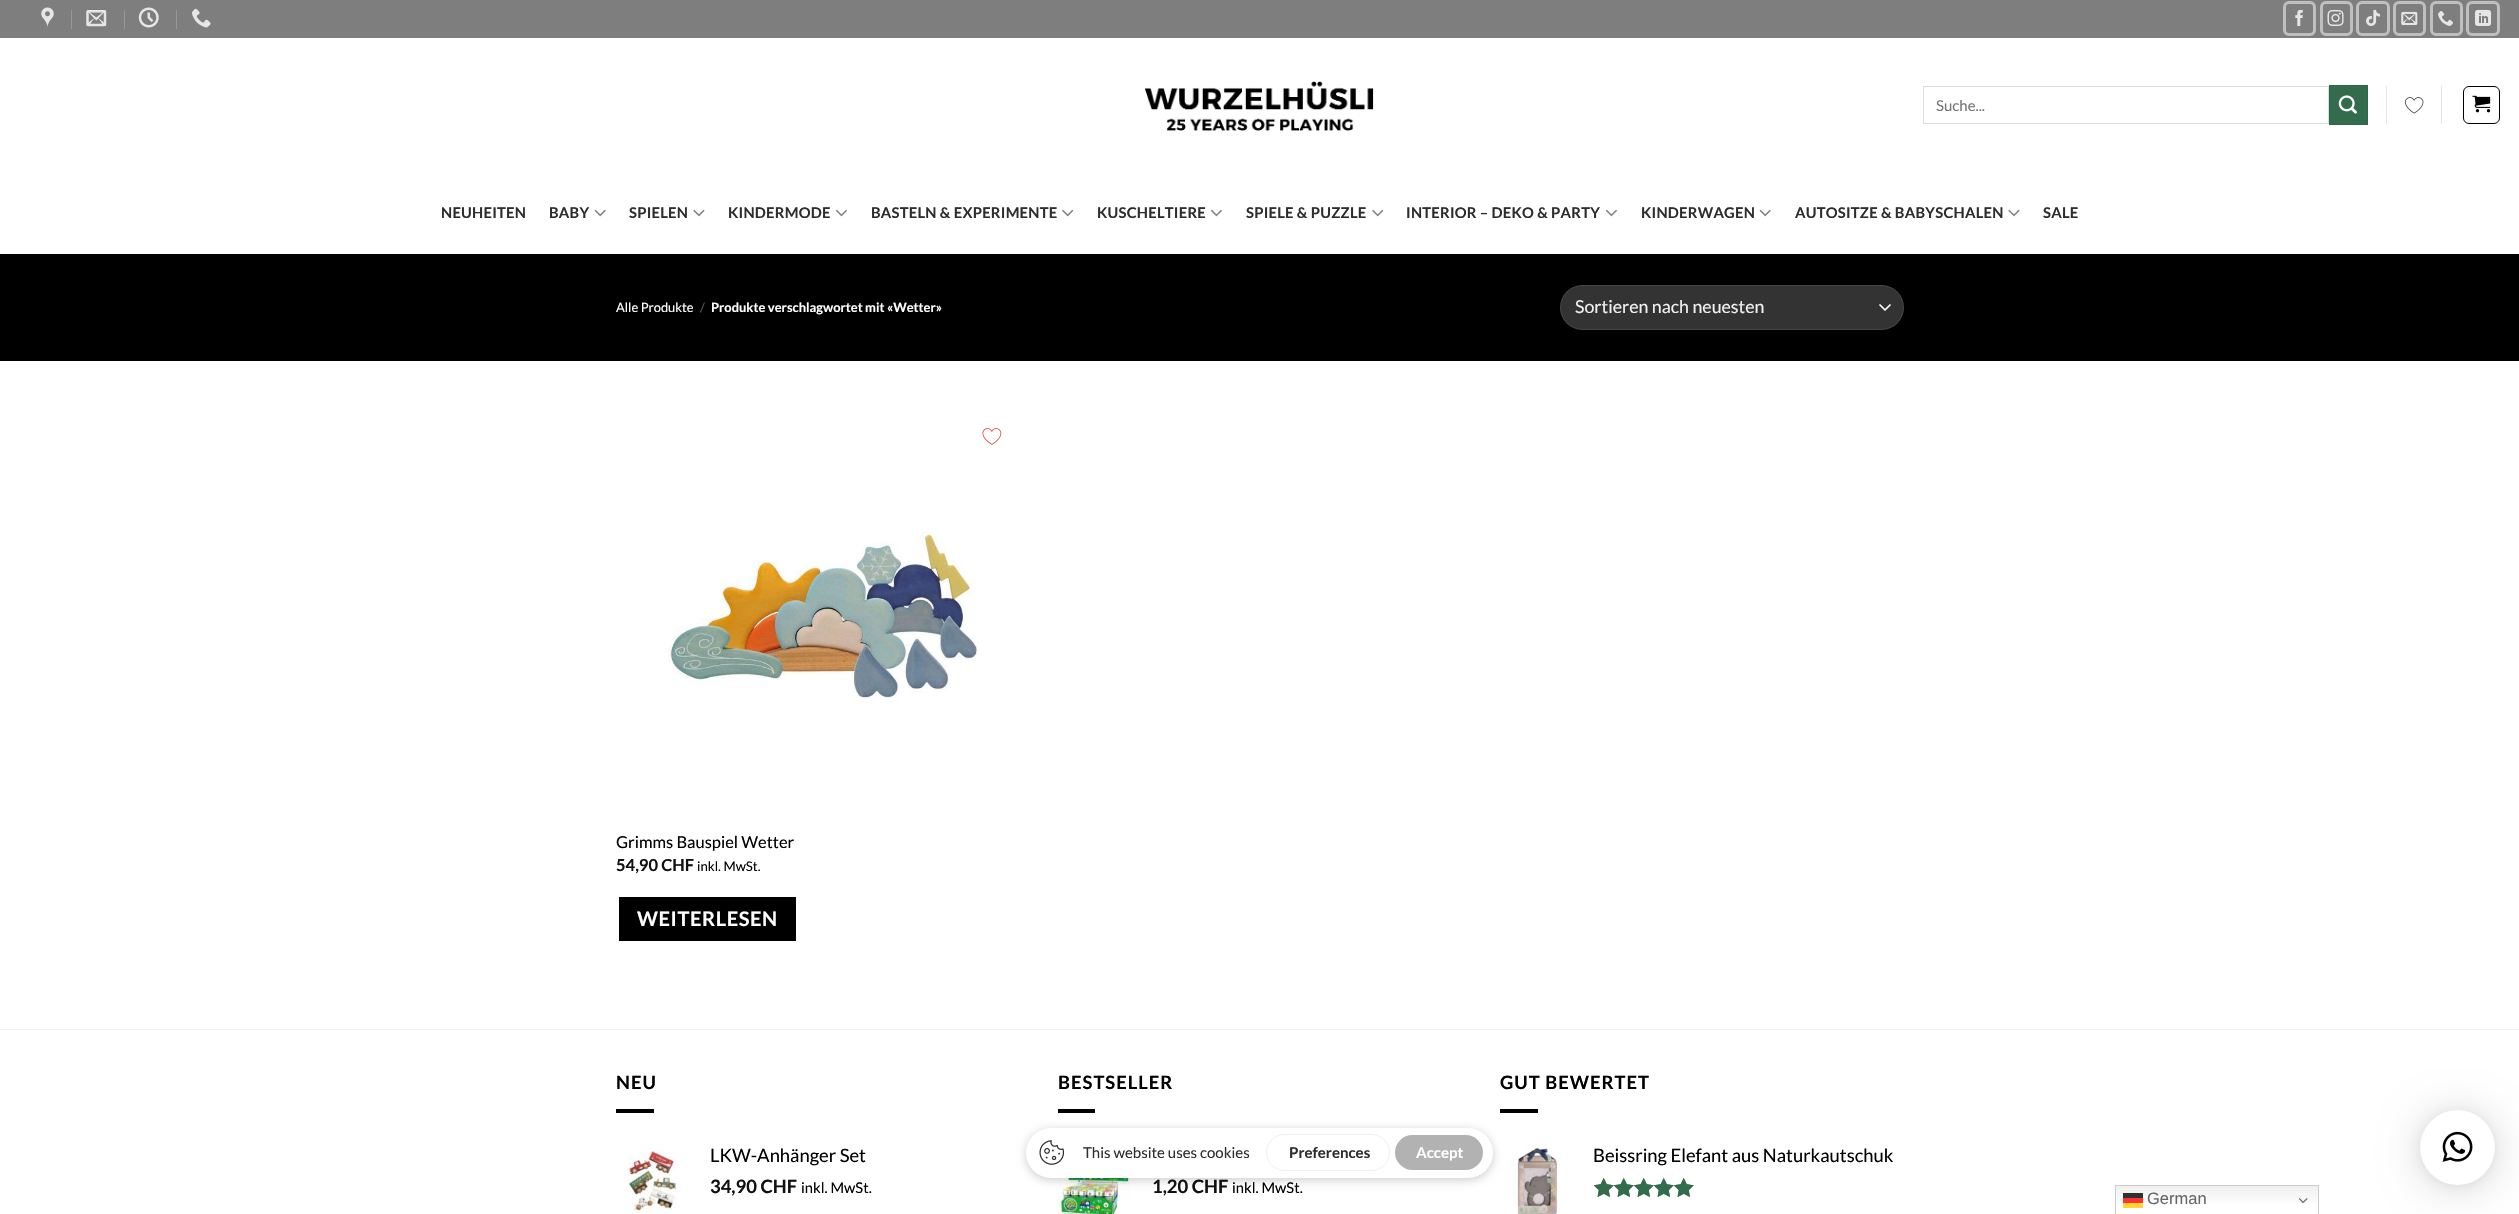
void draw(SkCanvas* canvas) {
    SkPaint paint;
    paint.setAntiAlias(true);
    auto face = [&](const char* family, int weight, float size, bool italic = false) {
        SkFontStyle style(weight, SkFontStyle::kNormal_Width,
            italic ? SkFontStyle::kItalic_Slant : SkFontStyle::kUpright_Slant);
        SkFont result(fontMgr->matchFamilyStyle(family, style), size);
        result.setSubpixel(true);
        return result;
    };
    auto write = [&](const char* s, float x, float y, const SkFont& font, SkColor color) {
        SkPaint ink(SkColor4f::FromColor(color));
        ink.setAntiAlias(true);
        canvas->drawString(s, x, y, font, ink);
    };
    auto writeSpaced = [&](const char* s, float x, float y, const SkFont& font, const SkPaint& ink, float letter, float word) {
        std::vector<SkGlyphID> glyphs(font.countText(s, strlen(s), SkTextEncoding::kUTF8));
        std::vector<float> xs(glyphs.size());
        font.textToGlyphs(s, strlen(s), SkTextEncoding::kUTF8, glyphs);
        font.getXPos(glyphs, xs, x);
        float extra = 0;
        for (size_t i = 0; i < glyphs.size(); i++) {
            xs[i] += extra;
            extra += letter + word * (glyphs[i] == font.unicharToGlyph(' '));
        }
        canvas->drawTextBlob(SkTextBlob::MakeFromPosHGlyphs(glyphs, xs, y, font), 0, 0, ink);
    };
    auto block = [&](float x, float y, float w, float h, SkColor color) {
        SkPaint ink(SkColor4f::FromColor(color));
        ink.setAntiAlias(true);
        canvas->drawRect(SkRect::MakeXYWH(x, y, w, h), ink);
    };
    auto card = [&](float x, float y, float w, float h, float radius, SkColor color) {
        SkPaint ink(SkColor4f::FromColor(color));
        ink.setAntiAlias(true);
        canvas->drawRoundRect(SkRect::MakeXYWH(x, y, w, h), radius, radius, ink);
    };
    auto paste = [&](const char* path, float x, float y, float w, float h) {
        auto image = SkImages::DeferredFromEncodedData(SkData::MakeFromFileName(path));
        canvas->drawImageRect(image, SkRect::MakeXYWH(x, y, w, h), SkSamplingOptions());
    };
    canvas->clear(SK_ColorWHITE);
    block(0, 0, 2519, 38, SkColorSetRGB(126, 126, 126));
    paste("pic1.png", 41, 7, 13, 20);
    block(71, 10, 1, 19, SkColorSetRGB(152, 152, 152));
    paste("pic2.png", 86, 10, 21, 17);
    block(124, 10, 1, 19, SkColorSetRGB(152, 152, 152));
    paste("pic3.png", 138, 7, 21, 21);
    block(176, 10, 1, 19, SkColorSetRGB(152, 152, 152));
    paste("pic4.png", 191, 8, 20, 20);
    paint.setStyle(SkPaint::kStroke_Style);
    paint.setStrokeWidth(3);
    paint.setColor(SkColorSetRGB(191, 191, 191));
    canvas->drawRoundRect(SkRect::MakeXYWH(2284.5f, 2.5f, 30, 32), 4.5f, 4.5f, paint);
    paste("pic5.png", 2295, 9, 8, 17);
    canvas->drawRoundRect(SkRect::MakeXYWH(2321.5f, 2.5f, 30, 32), 4.5f, 4.5f, paint);
    paste("pic6.png", 2327, 9, 17, 17);
    canvas->drawRoundRect(SkRect::MakeXYWH(2357.5f, 2.5f, 31, 32), 4.5f, 4.5f, paint);
    paste("pic7.png", 2366, 9, 14, 17);
    canvas->drawRoundRect(SkRect::MakeXYWH(2394.5f, 2.5f, 30, 32), 4.5f, 4.5f, paint);
    paste("pic8.png", 2401, 11, 17, 14);
    canvas->drawRoundRect(SkRect::MakeXYWH(2431.5f, 2.5f, 30, 32), 4.5f, 4.5f, paint);
    paste("pic9.png", 2438, 11, 15, 15);
    canvas->drawRoundRect(SkRect::MakeXYWH(2467.5f, 2.5f, 31, 32), 4.5f, 4.5f, paint);
    paste("pic10.png", 2475, 9, 17, 17);
    paste("pic11.png", 1144, 81, 230, 50);
    paint.setStrokeWidth(1);
    paint.setColor(SkColorSetRGB(221, 221, 221));
    canvas->drawRect(SkRect::MakeXYWH(1923.5f, 86.5f, 405, 37), paint);
    auto kFont1 = face("Lato", 400, 15);
    write("Suche...", 1936, 111, kFont1, SkColorSetRGB(117, 117, 117));
    paint.setStyle(SkPaint::kFill_Style);
    paint.setColor(SkColorSetRGB(51, 108, 76));
    canvas->drawRect(SkRect::MakeXYWH(2329.5f, 85.5f, 38, 39), paint);
    paint.setStyle(SkPaint::kStroke_Style);
    paint.setColor(SkColorSetRGB(48, 103, 72));
    canvas->drawRect(SkRect::MakeXYWH(2329.5f, 85.5f, 38, 39), paint);
    paste("pic12.png", 2338, 95, 19, 19);
    block(2386, 86, 1, 38, SkColorSetRGB(230, 230, 230));
    paste("pic13.png", 2405, 97, 19, 17);
    block(2441, 86, 1, 38, SkColorSetRGB(230, 230, 230));
    paint.setColor(SK_ColorBLACK);
    canvas->drawRoundRect(SkRect::MakeXYWH(2463.5f, 86.5f, 36, 37), 5.5f, 5.5f, paint);
    paste("pic14.png", 2472, 95, 19, 18);
    auto kFont2 = face("Lato", 700, 14.75f);
    paint.setStyle(SkPaint::kFill_Style);
    paint.setColor(SkColorSetRGB(46, 45, 45));
    writeSpaced("NEUHEITEN", 441, 218, kFont2, paint, 0.25f, 0);
    writeSpaced("BABY", 549, 218, kFont2, paint, 0.25f, 0);
    paste("pic15.png", 594, 209, 12, 8);
    writeSpaced("SPIELEN", 629, 218, kFont2, paint, 0.25f, 0);
    paste("pic16.png", 693, 209, 12, 8);
    writeSpaced("KINDERMODE", 728, 218, kFont2, paint, 0.25f, 0);
    paste("pic17.png", 835, 209, 12, 8);
    writeSpaced("BASTELN & EXPERIMENTE", 871, 218, kFont2, paint, 0.25f, 0);
    paste("pic18.png", 1062, 209, 12, 8);
    writeSpaced("KUSCHELTIERE", 1097, 218, kFont2, paint, 0.25f, 0);
    paste("pic17.png", 1210, 209, 12, 8);
    writeSpaced("SPIELE & PUZZLE", 1246, 218, kFont2, paint, 0.25f, 0);
    paste("pic18.png", 1372, 209, 12, 8);
    writeSpaced("INTERIOR – DEKO & PARTY", 1406, 218, kFont2, paint, 0.25f, 0);
    paste("pic17.png", 1605, 209, 12, 8);
    writeSpaced("KINDERWAGEN", 1641, 218, kFont2, paint, 0.25f, 0);
    paste("pic15.png", 1759, 209, 12, 8);
    writeSpaced("AUTOSITZE & BABYSCHALEN", 1795, 218, kFont2, paint, 0.25f, 0);
    paste("pic16.png", 2008, 209, 12, 8);
    writeSpaced("SALE", 2043, 218, kFont2, paint, 0.25f, 0);
    block(0, 254, 2519, 107, SK_ColorBLACK);
    auto kFont3 = face("Lato", 400, 12.9f);
    write("Alle Produkte", 616, 312, kFont3, SK_ColorWHITE);
    write("/", 700, 312, kFont3, SkColorSetRGB(89, 89, 89));
    auto kFont4 = face("Lato", 700, 12.9f);
    write("Produkte verschlagwortet mit «Wetter»", 711, 312, kFont4, SK_ColorWHITE);
    card(1560, 285, 344, 45, 22.5f, SkColorSetRGB(51, 51, 51));
    paint.setStyle(SkPaint::kStroke_Style);
    paint.setStrokeWidth(1.7f);
    paint.setStrokeCap(SkPaint::kRound_Cap);
    paint.setStrokeJoin(SkPaint::kRound_Join);
    paint.setColor(SK_ColorWHITE);
    canvas->drawPath(SkPathBuilder().moveTo(1880, 305).lineTo(1885, 310).lineTo(1890, 305).detach(), paint);
    paint.setStrokeWidth(1);
    paint.setStrokeCap(SkPaint::kButt_Cap);
    paint.setStrokeJoin(SkPaint::kMiter_Join);
    paint.setColor(SkColorSetARGB(23, 255, 255, 255));
    canvas->drawRoundRect(SkRect::MakeXYWH(1560.5f, 285.5f, 343, 44), 22, 22, paint);
    auto kFont5 = face("Lato", 400, 17.8f);
    write("Sortieren nach neuesten", 1575, 313, kFont5, SkColorSetRGB(241, 241, 241));
    paste("pic19.png", 982, 428, 20, 17);
    paste("pic20.png", 668, 532, 311, 171);
    auto kFont6 = face("Lato", 400, 16.5f);
    write("Grimms Bauspiel Wetter", 616, 848, kFont6, SK_ColorBLACK);
    auto kFont7 = face("Lato", 700, 16.5f);
    write("54,90 CHF", 616, 871, kFont7, SkColorSetRGB(17, 17, 17));
    auto kFont8 = face("Lato", 400, 13.25f);
    write("inkl. MwSt.", 697, 871, kFont8, SK_ColorBLACK);
    block(619, 897, 177, 44, SK_ColorBLACK);
    auto kFont9 = face("Lato", 700, 20);
    paint.setStyle(SkPaint::kFill_Style);
    paint.setColor(SK_ColorWHITE);
    writeSpaced("WEITERLESEN", 637, 926, kFont9, paint, 0.6f, 0);
    block(0, 1029, 2519, 1, SkColorSetRGB(242, 242, 242));
    auto kFont10 = face("Lato", 700, 18.4f);
    paint.setColor(SK_ColorBLACK);
    writeSpaced("NEU", 616, 1089, kFont10, paint, 1, 0);
    block(616, 1109, 38, 4, SK_ColorBLACK);
    paste("pic21.png", 628, 1144, 49, 70);
    auto kFont11 = face("Lato", 400, 18.4f);
    write("LKW-Anhänger Set", 710, 1162, kFont11, SK_ColorBLACK);
    write("34,90 CHF", 710, 1193, kFont10, SkColorSetRGB(17, 17, 17));
    auto kFont12 = face("Lato", 400, 14.75f);
    write("inkl. MwSt.", 801, 1193, kFont12, SK_ColorBLACK);
    writeSpaced("BESTSELLER", 1058, 1089, kFont10, paint, 1, 0);
    block(1058, 1109, 37, 4, SK_ColorBLACK);
    paste("pic22.png", 1057, 1178, 73, 36);
    write("1,20 CHF", 1152, 1193, kFont10, SkColorSetRGB(17, 17, 17));
    write("inkl. MwSt.", 1232, 1193, kFont12, SK_ColorBLACK);
    writeSpaced("GUT BEWERTET", 1500, 1089, kFont10, paint, 1, 0);
    block(1500, 1109, 38, 4, SK_ColorBLACK);
    paste("pic23.png", 1512, 1144, 48, 70);
    write("Beissring Elefant aus Naturkautschuk", 1593, 1162, kFont11, SK_ColorBLACK);
    paste("pic24.png", 1594, 1178, 100, 19);
    paste("pic25.png", 1594, 1178, 100, 19);
    paint.setColor(SkColorSetARGB(41, 0, 0, 0));
    paint.setMaskFilter(SkMaskFilter::MakeBlur(kNormal_SkBlurStyle, 20));
    canvas->drawRoundRect(SkRect::MakeXYWH(2420, 1113, 75, 75), 37.5f, 37.5f, paint);
    paint.setMaskFilter(nullptr);
    paint.setColor(SkColorSetARGB(15, 0, 0, 0));
    paint.setMaskFilter(SkMaskFilter::MakeBlur(kNormal_SkBlurStyle, 4));
    canvas->drawRoundRect(SkRect::MakeXYWH(2420, 1111, 75, 75), 37.5f, 37.5f, paint);
    paint.setMaskFilter(nullptr);
    paint.setColor(SK_ColorWHITE);
    canvas->drawCircle(2457.5f, 1147.5f, 37.5f, paint);
    paste("pic26.png", 2442, 1131, 31, 31);
    paint.setColor(SkColorSetARGB(51, 0, 0, 0));
    paint.setMaskFilter(SkMaskFilter::MakeBlur(kNormal_SkBlurStyle, 5));
    canvas->drawRoundRect(SkRect::MakeXYWH(1026, 1130, 467, 50), 25, 25, paint);
    paint.setMaskFilter(nullptr);
    card(1026, 1128, 467, 50, 25, SK_ColorWHITE);
    paste("pic27.png", 1039, 1140, 25, 25);
    write("This website uses cookies", 1083, 1158, kFont1, SkColorSetRGB(46, 45, 45));
    paint.setStyle(SkPaint::kStroke_Style);
    paint.setColor(SkColorSetRGB(240, 240, 240));
    canvas->drawRoundRect(SkRect::MakeXYWH(1266.5f, 1134.5f, 123, 36), 18, 18, paint);
    auto kFont13 = face("Lato", 700, 15);
    write("Preferences", 1289, 1158, kFont13, SkColorSetRGB(46, 45, 45));
    card(1395, 1135, 88, 35, 17.5f, SkColorSetRGB(178, 178, 178));
    write("Accept", 1416, 1158, kFont13, SK_ColorWHITE);
    paint.setStyle(SkPaint::kFill_Style);
    {
        const SkColor colors[] = {SkColorSetRGB(239, 239, 239), SK_ColorWHITE};
        const float stops[] = {0, 0.7f};
        const SkPoint ends[] = {{2217, 1185}, {2217, 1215}};
        paint.setShader(SkGradientShader::MakeLinear(ends, colors, stops, 2, SkTileMode::kClamp));
        paint.setAlpha(255);
    }
    canvas->drawRect(SkRect::MakeXYWH(2116, 1186, 202, 17), paint);
    {
        const SkColor colors[] = {SkColorSetRGB(252, 48, 48), SkColorSetRGB(255, 51, 51)};
        const float stops[] = {0, 0.7f};
        const SkPoint ends[] = {{2217, 1185}, {2217, 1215}};
        paint.setShader(SkGradientShader::MakeLinear(ends, colors, stops, 2, SkTileMode::kClamp));
        paint.setAlpha(255);
    }
    canvas->drawRect(SkRect::MakeXYWH(2123, 1198, 20, 5), paint);
    {
        const SkColor colors[] = {SkColorSetRGB(48, 48, 48), SkColorSetRGB(51, 51, 51)};
        const float stops[] = {0, 0.7f};
        const SkPoint ends[] = {{2217, 1185}, {2217, 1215}};
        paint.setShader(SkGradientShader::MakeLinear(ends, colors, stops, 2, SkTileMode::kClamp));
        paint.setAlpha(255);
    }
    canvas->drawRect(SkRect::MakeXYWH(2123, 1193, 20, 5), paint);
    paint.setStyle(SkPaint::kStroke_Style);
    paint.setShader(nullptr);
    paint.setColor(SkColorSetRGB(204, 204, 204));
    canvas->drawRect(SkRect::MakeXYWH(2115.5f, 1185.5f, 203, 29), paint);
    auto kFont14 = face("Liberation Sans", 400, 16.5f);
    write("German", 2147, 1204, kFont14, SkColorSetRGB(102, 102, 102));
    paste("pic28.png", 2299, 1198, 9, 6);
    block(2123, 1203, 20, 5, SkColorSetRGB(255, 214, 51));
}
